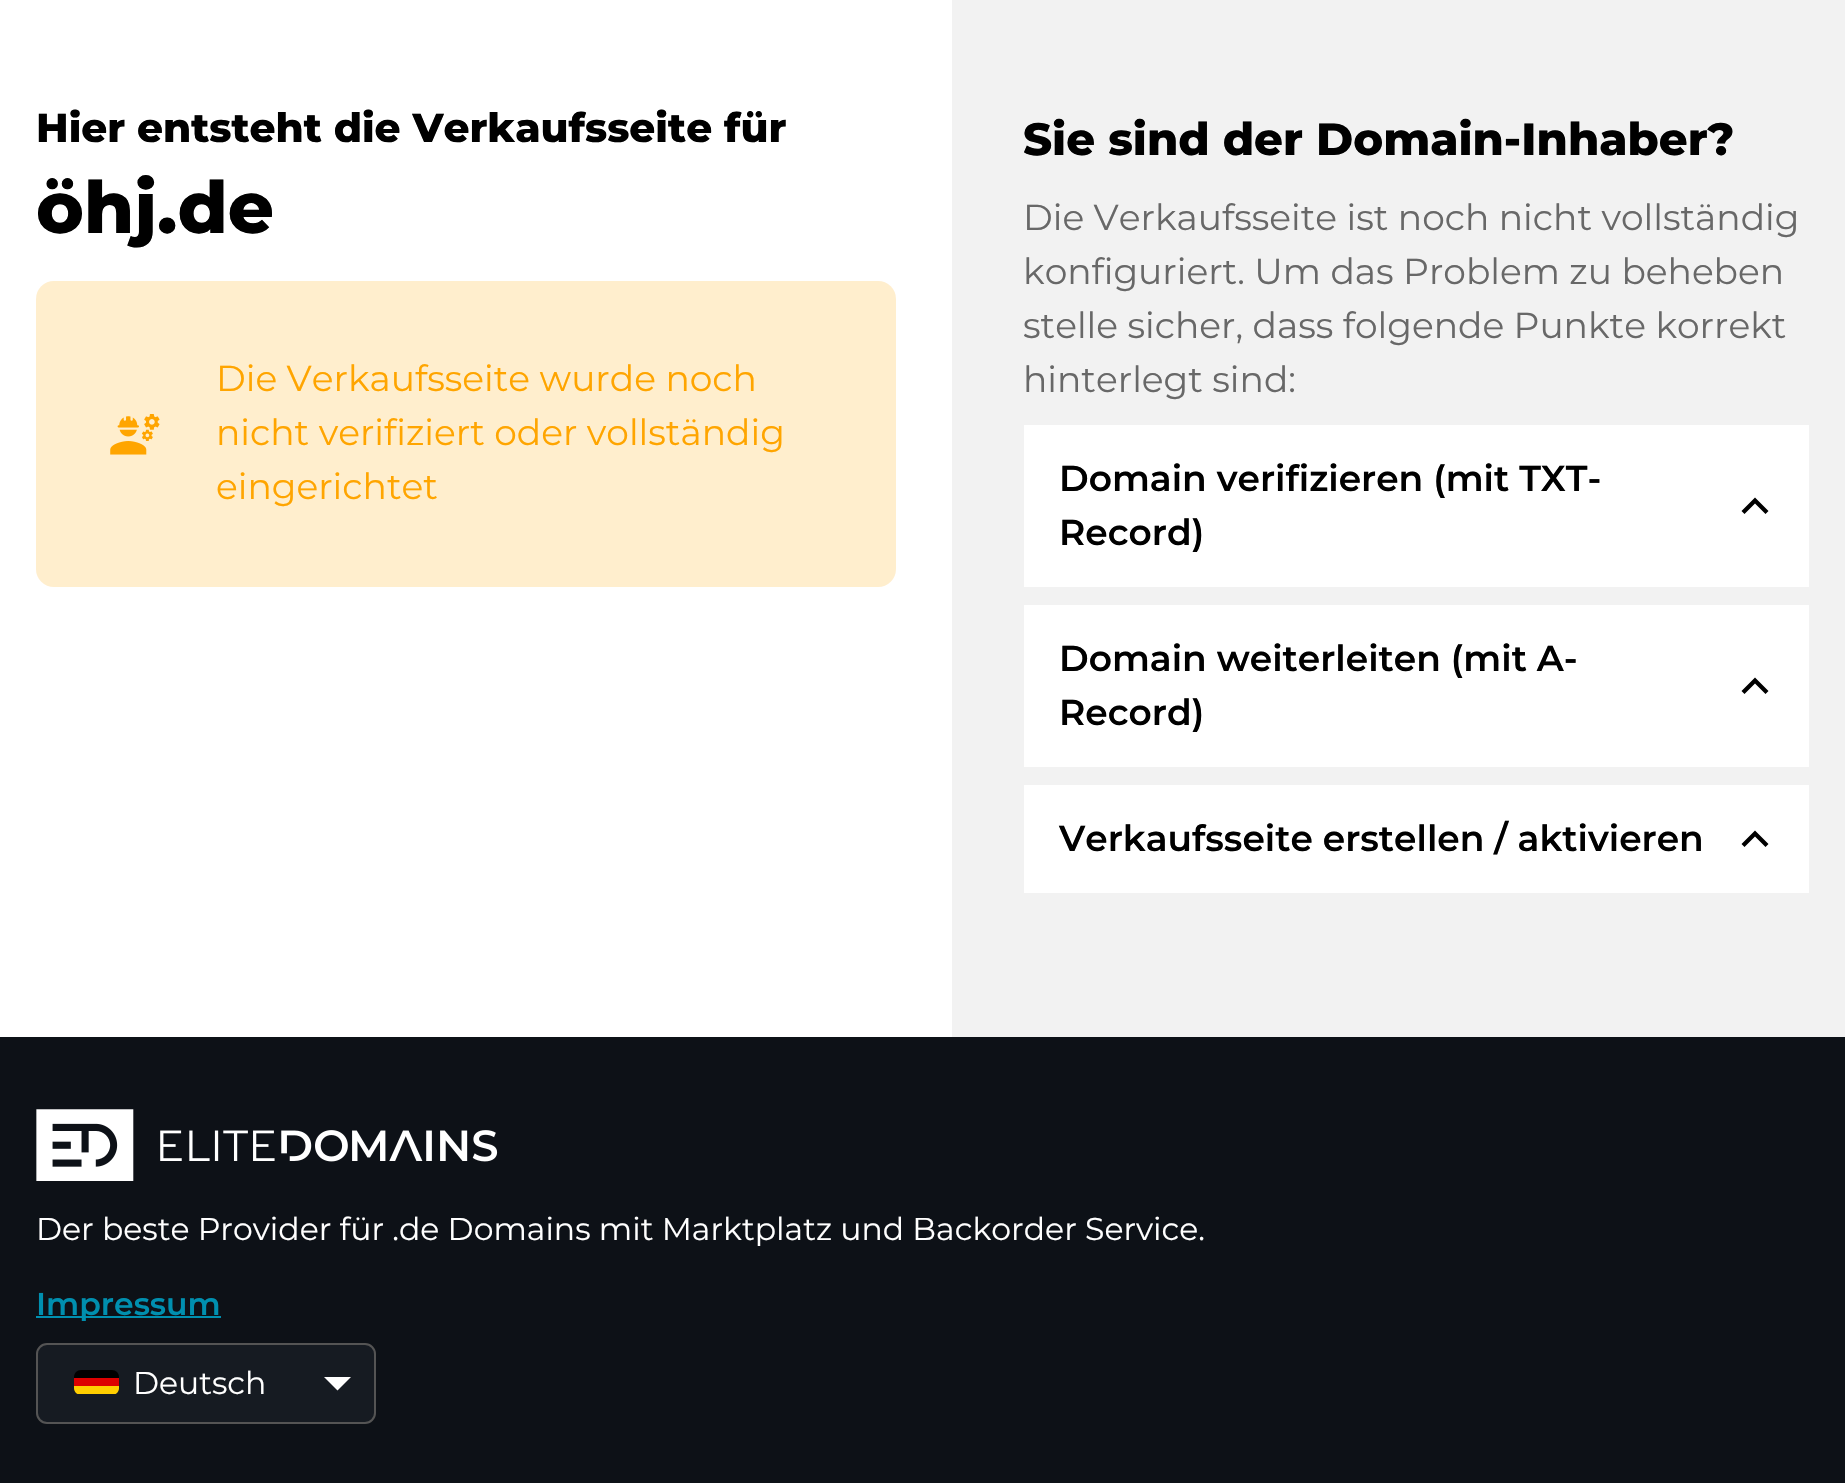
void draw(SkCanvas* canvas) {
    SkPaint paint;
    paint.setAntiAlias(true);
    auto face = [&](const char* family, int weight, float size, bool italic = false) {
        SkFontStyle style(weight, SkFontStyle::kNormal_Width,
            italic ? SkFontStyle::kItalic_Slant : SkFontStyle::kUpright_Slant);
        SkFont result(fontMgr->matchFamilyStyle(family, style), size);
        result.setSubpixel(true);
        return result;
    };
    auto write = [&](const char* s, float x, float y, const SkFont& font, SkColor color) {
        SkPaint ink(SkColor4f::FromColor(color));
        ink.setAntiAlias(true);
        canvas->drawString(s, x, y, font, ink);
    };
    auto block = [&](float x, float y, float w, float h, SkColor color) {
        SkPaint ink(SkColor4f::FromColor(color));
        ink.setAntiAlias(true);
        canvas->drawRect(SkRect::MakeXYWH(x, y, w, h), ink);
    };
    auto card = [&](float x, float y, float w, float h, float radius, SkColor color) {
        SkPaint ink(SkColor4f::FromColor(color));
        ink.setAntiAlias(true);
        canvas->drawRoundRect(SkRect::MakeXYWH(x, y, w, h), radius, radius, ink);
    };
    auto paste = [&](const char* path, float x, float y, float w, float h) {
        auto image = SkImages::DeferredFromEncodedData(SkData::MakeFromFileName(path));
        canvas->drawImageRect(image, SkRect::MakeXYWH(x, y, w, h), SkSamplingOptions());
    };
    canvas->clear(SK_ColorWHITE);
    auto kFont1 = face("Montserrat", 800, 40.5f);
    write("Hier entsteht die Verkaufsseite für", 36, 142, kFont1, SK_ColorBLACK);
    auto kFont2 = face("Montserrat", 800, 72);
    write("öhj.de", 36, 233, kFont2, SK_ColorBLACK);
    card(36, 281, 860, 306, 18, SkColorSetRGB(255, 238, 205));
    paste("pic1.png", 110, 414, 50, 41);
    auto kFont3 = face("Montserrat", 400, 36);
    write("Die Verkaufsseite wurde noch", 216, 391, kFont3, SkColorSetRGB(255, 165, 0));
    write("nicht verifiziert oder vollständig", 216, 445, kFont3, SkColorSetRGB(255, 165, 0));
    write("eingerichtet", 216, 499, kFont3, SkColorSetRGB(255, 165, 0));
    block(952, 0, 893, 1037, SkColorSetRGB(242, 242, 242));
    auto kFont4 = face("Montserrat", 800, 45);
    write("Sie sind der Domain-Inhaber?", 1023, 155, kFont4, SK_ColorBLACK);
    write("Die Verkaufsseite ist noch nicht vollständig", 1023, 230, kFont3, SkColorSetRGB(104, 104, 104));
    write("konfiguriert. Um das Problem zu beheben", 1023, 284, kFont3, SkColorSetRGB(104, 104, 104));
    write("stelle sicher, dass folgende Punkte korrekt", 1023, 338, kFont3, SkColorSetRGB(104, 104, 104));
    write("hinterlegt sind:", 1023, 392, kFont3, SkColorSetRGB(104, 104, 104));
    block(1024, 425, 785, 162, SK_ColorWHITE);
    auto kFont5 = face("Montserrat", 600, 36);
    write("Domain verifizieren (mit TXT-", 1059, 491, kFont5, SK_ColorBLACK);
    write("Record)", 1059, 545, kFont5, SK_ColorBLACK);
    paint.setColor(SK_ColorBLACK);
    canvas->drawPath(SkPathBuilder().moveTo(1755, 497.5f).lineTo(1768.5f, 511).lineTo(1765.5f, 514).lineTo(1755, 503.5f).lineTo(1744.5f, 514).lineTo(1741.5f, 511).close().detach(), paint);
    block(1024, 605, 785, 162, SK_ColorWHITE);
    write("Domain weiterleiten (mit A-", 1059, 671, kFont5, SK_ColorBLACK);
    write("Record)", 1059, 725, kFont5, SK_ColorBLACK);
    canvas->drawPath(SkPathBuilder().moveTo(1755, 677.5f).lineTo(1768.5f, 691).lineTo(1765.5f, 694).lineTo(1755, 683.5f).lineTo(1744.5f, 694).lineTo(1741.5f, 691).close().detach(), paint);
    block(1024, 785, 785, 108, SK_ColorWHITE);
    write("Verkaufsseite erstellen / aktivieren", 1059, 851, kFont5, SK_ColorBLACK);
    canvas->drawPath(SkPathBuilder().moveTo(1755, 830.5f).lineTo(1768.5f, 844).lineTo(1765.5f, 847).lineTo(1755, 836.5f).lineTo(1744.5f, 847).lineTo(1741.5f, 844).close().detach(), paint);
    block(0, 1037, 1845, 446, SkColorSetRGB(13, 17, 23));
    paste("pic2.png", 36, 1109, 462, 72);
    auto kFont6 = face("Montserrat", 400, 31.5f);
    write("Der beste Provider für .de Domains mit Marktplatz und Backorder Service.", 36, 1240, kFont6, SK_ColorWHITE);
    block(36, 1316, 185, 2, SkColorSetRGB(0, 143, 175));
    auto kFont7 = face("Montserrat", 600, 31.5f);
    write("Impressum", 36, 1315, kFont7, SkColorSetRGB(0, 143, 175));
    paint.setColor(SkColorSetRGB(22, 27, 34));
    canvas->drawRoundRect(SkRect::MakeXYWH(37, 1344, 338, 79), 10, 10, paint);
    paint.setStyle(SkPaint::kStroke_Style);
    paint.setStrokeWidth(2);
    paint.setColor(SkColorSetRGB(84, 84, 84));
    canvas->drawRoundRect(SkRect::MakeXYWH(37, 1344, 338, 79), 10, 10, paint);
    paint.setStyle(SkPaint::kFill_Style);
    paint.setColor(SK_ColorBLACK);
    canvas->drawPath(SkPathBuilder().moveTo(81, 1370).lineTo(112, 1370).cubicTo(116, 1370, 119, 1373, 119, 1377).lineTo(119, 1378).lineTo(74, 1378).lineTo(74, 1377).cubicTo(74, 1373, 77, 1370, 81, 1370).close().detach(), paint);
    block(74, 1378, 45, 8, SkColorSetRGB(221, 0, 0));
    canvas->save();
    canvas->clipPath(SkPathBuilder().moveTo(81, 1370).lineTo(112, 1370).cubicTo(116, 1370, 119, 1373, 119, 1377).lineTo(119, 1388).cubicTo(119, 1392, 116, 1395, 112, 1395).lineTo(81, 1395).cubicTo(77, 1395, 74, 1392, 74, 1388).lineTo(74, 1377).cubicTo(74, 1373, 77, 1370, 81, 1370).close().detach(), true);
    block(74, 1386, 45, 8, SkColorSetRGB(255, 206, 0));
    canvas->restore();
    write("Deutsch", 133, 1394, kFont6, SK_ColorWHITE);
    paint.setColor(SK_ColorWHITE);
    canvas->drawPath(SkPathBuilder().moveTo(324, 1377).lineTo(351, 1377).lineTo(337.5f, 1390.5f).close().detach(), paint);
}
